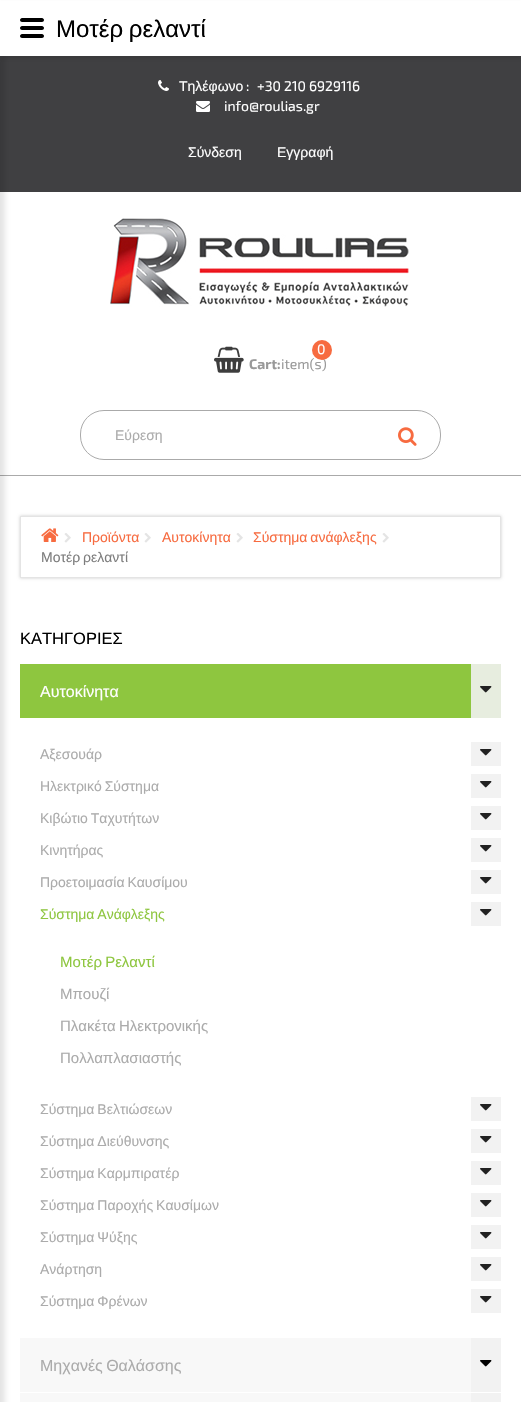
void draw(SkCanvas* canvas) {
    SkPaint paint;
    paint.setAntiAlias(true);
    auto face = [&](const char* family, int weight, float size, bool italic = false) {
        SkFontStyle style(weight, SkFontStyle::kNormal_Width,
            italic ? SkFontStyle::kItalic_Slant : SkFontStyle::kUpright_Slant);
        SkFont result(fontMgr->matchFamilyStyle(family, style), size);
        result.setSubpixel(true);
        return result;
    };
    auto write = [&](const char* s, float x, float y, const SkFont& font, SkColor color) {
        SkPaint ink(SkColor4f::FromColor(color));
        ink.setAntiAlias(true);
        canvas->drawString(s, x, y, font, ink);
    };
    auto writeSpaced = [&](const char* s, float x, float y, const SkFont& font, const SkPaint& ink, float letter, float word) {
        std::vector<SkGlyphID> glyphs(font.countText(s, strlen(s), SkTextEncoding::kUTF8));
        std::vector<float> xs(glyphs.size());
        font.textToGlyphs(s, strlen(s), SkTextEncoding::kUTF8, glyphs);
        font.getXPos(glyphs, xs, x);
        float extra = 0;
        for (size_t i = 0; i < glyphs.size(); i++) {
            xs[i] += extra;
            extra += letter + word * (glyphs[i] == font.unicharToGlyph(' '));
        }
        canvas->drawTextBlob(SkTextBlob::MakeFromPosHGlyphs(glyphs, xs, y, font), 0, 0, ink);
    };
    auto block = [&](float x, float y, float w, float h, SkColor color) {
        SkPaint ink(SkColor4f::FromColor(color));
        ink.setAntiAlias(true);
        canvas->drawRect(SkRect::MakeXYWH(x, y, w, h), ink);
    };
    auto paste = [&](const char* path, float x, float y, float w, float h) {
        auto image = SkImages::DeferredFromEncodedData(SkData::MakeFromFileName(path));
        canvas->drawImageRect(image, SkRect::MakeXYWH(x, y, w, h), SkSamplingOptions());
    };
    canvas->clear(SK_ColorWHITE);
    block(0, 56, 521, 136, SkColorSetRGB(64, 64, 66));
    paint.setColor(SkColorSetARGB(26, 0, 0, 0));
    paint.setMaskFilter(SkMaskFilter::MakeBlur(kNormal_SkBlurStyle, 1.5f));
    canvas->drawRect(SkRect::MakeXYWH(0, 3, 521, 56), paint);
    paint.setMaskFilter(nullptr);
    block(0, 475, 521, 1, SkColorSetRGB(170, 170, 170));
    paint.setMaskFilter(SkMaskFilter::MakeBlur(kNormal_SkBlurStyle, 2.5f));
    canvas->drawRect(SkRect::MakeXYWH(-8, 56, 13, 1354), paint);
    paint.setMaskFilter(nullptr);
    block(0, 1, 521, 55, SK_ColorWHITE);
    paint.setColor(SK_ColorBLACK);
    canvas->drawPath(SkPathBuilder().moveTo(42, 30).lineTo(22, 30).cubicTo(21, 30, 20, 29, 20, 28).cubicTo(20, 27, 21, 26, 22, 26).lineTo(42, 26).cubicTo(43, 26, 44, 27, 44, 28).cubicTo(44, 29, 43, 30, 42, 30).close().moveTo(42, 38).lineTo(22, 38).cubicTo(21, 38, 20, 37, 20, 36).cubicTo(20, 35, 21, 34, 22, 34).lineTo(42, 34).cubicTo(43, 34, 44, 35, 44, 36).cubicTo(44, 37, 43, 38, 42, 38).close().moveTo(42, 22).lineTo(22, 22).cubicTo(21, 22, 20, 21, 20, 20).cubicTo(20, 19, 21, 18, 22, 18).lineTo(42, 18).cubicTo(43, 18, 44, 19, 44, 20).cubicTo(44, 21, 43, 22, 42, 22).close().detach(), paint);
    auto kFont1 = face("Liberation Sans", 400, 24);
    writeSpaced("Μοτέρ ρελαντί", 56, 37, kFont1, paint, 0, -1);
    paste("pic1.png", 158, 80, 11, 11);
    auto kFont2 = face("Liberation Sans", 400, 14);
    write("Τηλέφωνο", 179, 91, kFont2, SK_ColorWHITE);
    auto kFont3 = face("Exo 2", 400, 14);
    write(":", 246, 91, kFont3, SK_ColorWHITE);
    write("+30 210 6929116", 257, 91, kFont3, SK_ColorWHITE);
    paste("pic2.png", 196, 101, 14, 11);
    write("info@roulias.gr", 224, 111, kFont3, SK_ColorWHITE);
    write("Σύνδεση", 188, 157, kFont2, SK_ColorWHITE);
    write("Εγγραφή", 277, 157, kFont2, SK_ColorWHITE);
    paste("pic3.png", 110, 218, 299, 89);
    paste("pic4.png", 214, 346, 30, 27);
    write("item(s)", 281, 369, kFont3, SkColorSetRGB(153, 153, 153));
    paint.setColor(SkColorSetRGB(247, 107, 64));
    canvas->drawCircle(322, 350, 10, paint);
    write("0", 317, 354, kFont3, SK_ColorWHITE);
    auto kFont4 = face("Exo 2", 700, 14);
    write("Cart:", 249, 369, kFont4, SkColorSetRGB(153, 153, 153));
    paint.setStyle(SkPaint::kStroke_Style);
    paint.setStrokeWidth(1);
    paint.setColor(SkColorSetRGB(170, 170, 170));
    canvas->drawRoundRect(SkRect::MakeXYWH(80.5f, 410.5f, 360, 49), 23.5f, 23.5f, paint);
    write("Εύρεση", 115, 440, kFont2, SkColorSetRGB(171, 171, 171));
    paste("pic5.png", 398, 427, 19, 19);
    canvas->save();
    canvas->clipPath(SkPathBuilder(SkPathFillType::kEvenOdd).moveTo(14, 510).lineTo(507, 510).lineTo(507, 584).lineTo(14, 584).close().moveTo(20, 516).lineTo(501, 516).lineTo(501, 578).lineTo(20, 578).close().detach(), true);
    paint.setStyle(SkPaint::kFill_Style);
    paint.setColor(SkColorSetARGB(51, 0, 0, 0));
    paint.setMaskFilter(SkMaskFilter::MakeBlur(kNormal_SkBlurStyle, 1.5f));
    canvas->drawRect(SkRect::MakeXYWH(20, 516, 481, 62), paint);
    paint.setMaskFilter(nullptr);
    canvas->restore();
    paint.setStyle(SkPaint::kStroke_Style);
    paint.setColor(SkColorSetRGB(228, 228, 228));
    canvas->drawRect(SkRect::MakeXYWH(20.5f, 516.5f, 480, 61), paint);
    paste("pic6.png", 41, 528, 18, 14);
    paste("pic7.png", 64, 533, 7, 10);
    write("Προϊόντα", 82, 542, kFont2, SkColorSetRGB(247, 107, 64));
    paste("pic7.png", 144, 533, 7, 10);
    write("Αυτοκίνητα", 162, 542, kFont2, SkColorSetRGB(247, 107, 64));
    paste("pic7.png", 236, 533, 7, 10);
    paint.setStyle(SkPaint::kFill_Style);
    paint.setColor(SkColorSetRGB(247, 107, 64));
    writeSpaced("Σύστημα ανάφλεξης", 253, 542, kFont2, paint, 0, -1);
    paste("pic7.png", 382, 533, 7, 10);
    paint.setColor(SkColorSetRGB(125, 125, 125));
    writeSpaced("Μοτέρ ρελαντί", 41, 562, kFont2, paint, 0, -1);
    auto kFont5 = face("Liberation Sans", 400, 16.5f);
    write("ΚΑΤΗΓΟΡΙΕΣ", 20, 644, kFont5, SK_ColorBLACK);
    block(20, 664, 451, 54, SkColorSetRGB(142, 198, 63));
    auto kFont6 = face("Liberation Sans", 400, 16);
    write("Αυτοκίνητα", 40, 697, kFont6, SK_ColorWHITE);
    block(471, 664, 30, 54, SkColorSetRGB(231, 237, 223));
    paste("pic8.png", 480, 686, 12, 7);
    write("Αξεσουάρ", 40, 759, kFont2, SkColorSetRGB(171, 171, 171));
    block(471, 742, 30, 24, SkColorSetRGB(242, 242, 242));
    paste("pic9.png", 480, 749, 12, 7);
    paint.setColor(SkColorSetRGB(171, 171, 171));
    writeSpaced("Ηλεκτρικό Σύστημα", 40, 791, kFont2, paint, 0, -1);
    block(471, 774, 30, 24, SkColorSetRGB(242, 242, 242));
    paste("pic9.png", 480, 781, 12, 7);
    writeSpaced("Κιβώτιο Ταχυτήτων", 40, 823, kFont2, paint, 0, -1);
    block(471, 806, 30, 24, SkColorSetRGB(242, 242, 242));
    paste("pic9.png", 480, 813, 12, 7);
    write("Κινητήρας", 40, 855, kFont2, SkColorSetRGB(171, 171, 171));
    block(471, 838, 30, 24, SkColorSetRGB(242, 242, 242));
    paste("pic9.png", 480, 845, 12, 7);
    writeSpaced("Προετοιμασία Καυσίμου", 40, 887, kFont2, paint, 0, -1);
    block(471, 870, 30, 24, SkColorSetRGB(242, 242, 242));
    paste("pic9.png", 480, 877, 12, 7);
    paint.setColor(SkColorSetRGB(142, 198, 63));
    writeSpaced("Σύστημα Ανάφλεξης", 40, 919, kFont2, paint, 0, -1);
    block(471, 902, 30, 24, SkColorSetRGB(242, 242, 242));
    paste("pic9.png", 480, 909, 12, 7);
    auto kFont7 = face("Liberation Sans", 400, 15);
    writeSpaced("Μοτέρ Ρελαντί", 60, 967, kFont7, paint, 0, -1);
    write("Μπουζί", 60, 999, kFont7, SkColorSetRGB(171, 171, 171));
    paint.setColor(SkColorSetRGB(171, 171, 171));
    writeSpaced("Πλακέτα Ηλεκτρονικής", 60, 1031, kFont7, paint, 0, -1);
    write("Πολλαπλασιαστής", 60, 1063, kFont7, SkColorSetRGB(171, 171, 171));
    writeSpaced("Σύστημα Βελτιώσεων", 40, 1114, kFont2, paint, 0, -1);
    block(471, 1097, 30, 24, SkColorSetRGB(242, 242, 242));
    paste("pic9.png", 480, 1104, 12, 7);
    writeSpaced("Σύστημα Διεύθυνσης", 40, 1146, kFont2, paint, 0, -1);
    block(471, 1129, 30, 24, SkColorSetRGB(242, 242, 242));
    paste("pic9.png", 480, 1136, 12, 7);
    writeSpaced("Σύστημα Καρμπιρατέρ", 40, 1178, kFont2, paint, 0, -1);
    block(471, 1161, 30, 24, SkColorSetRGB(242, 242, 242));
    paste("pic9.png", 480, 1168, 12, 7);
    writeSpaced("Σύστημα Παροχής Καυσίμων", 40, 1210, kFont2, paint, 0, -1);
    block(471, 1193, 30, 24, SkColorSetRGB(242, 242, 242));
    paste("pic9.png", 480, 1200, 12, 7);
    writeSpaced("Σύστημα Ψύξης", 40, 1242, kFont2, paint, 0, -1);
    block(471, 1225, 30, 24, SkColorSetRGB(242, 242, 242));
    paste("pic9.png", 480, 1232, 12, 7);
    write("Ανάρτηση", 40, 1274, kFont2, SkColorSetRGB(171, 171, 171));
    block(471, 1257, 30, 24, SkColorSetRGB(242, 242, 242));
    paste("pic9.png", 480, 1264, 12, 7);
    writeSpaced("Σύστημα Φρένων", 40, 1306, kFont2, paint, 0, -1);
    block(471, 1289, 30, 24, SkColorSetRGB(242, 242, 242));
    paste("pic9.png", 480, 1296, 12, 7);
    block(20, 1338, 451, 54, SkColorSetRGB(248, 248, 248));
    writeSpaced("Μηχανές Θαλάσσης", 40, 1371, kFont6, paint, 0, -1);
    block(471, 1338, 30, 54, SkColorSetRGB(242, 242, 242));
    paste("pic10.png", 480, 1360, 12, 7);
    block(20, 1393, 451, 9, SkColorSetRGB(248, 248, 248));
    block(471, 1393, 30, 9, SkColorSetRGB(242, 242, 242));
}
